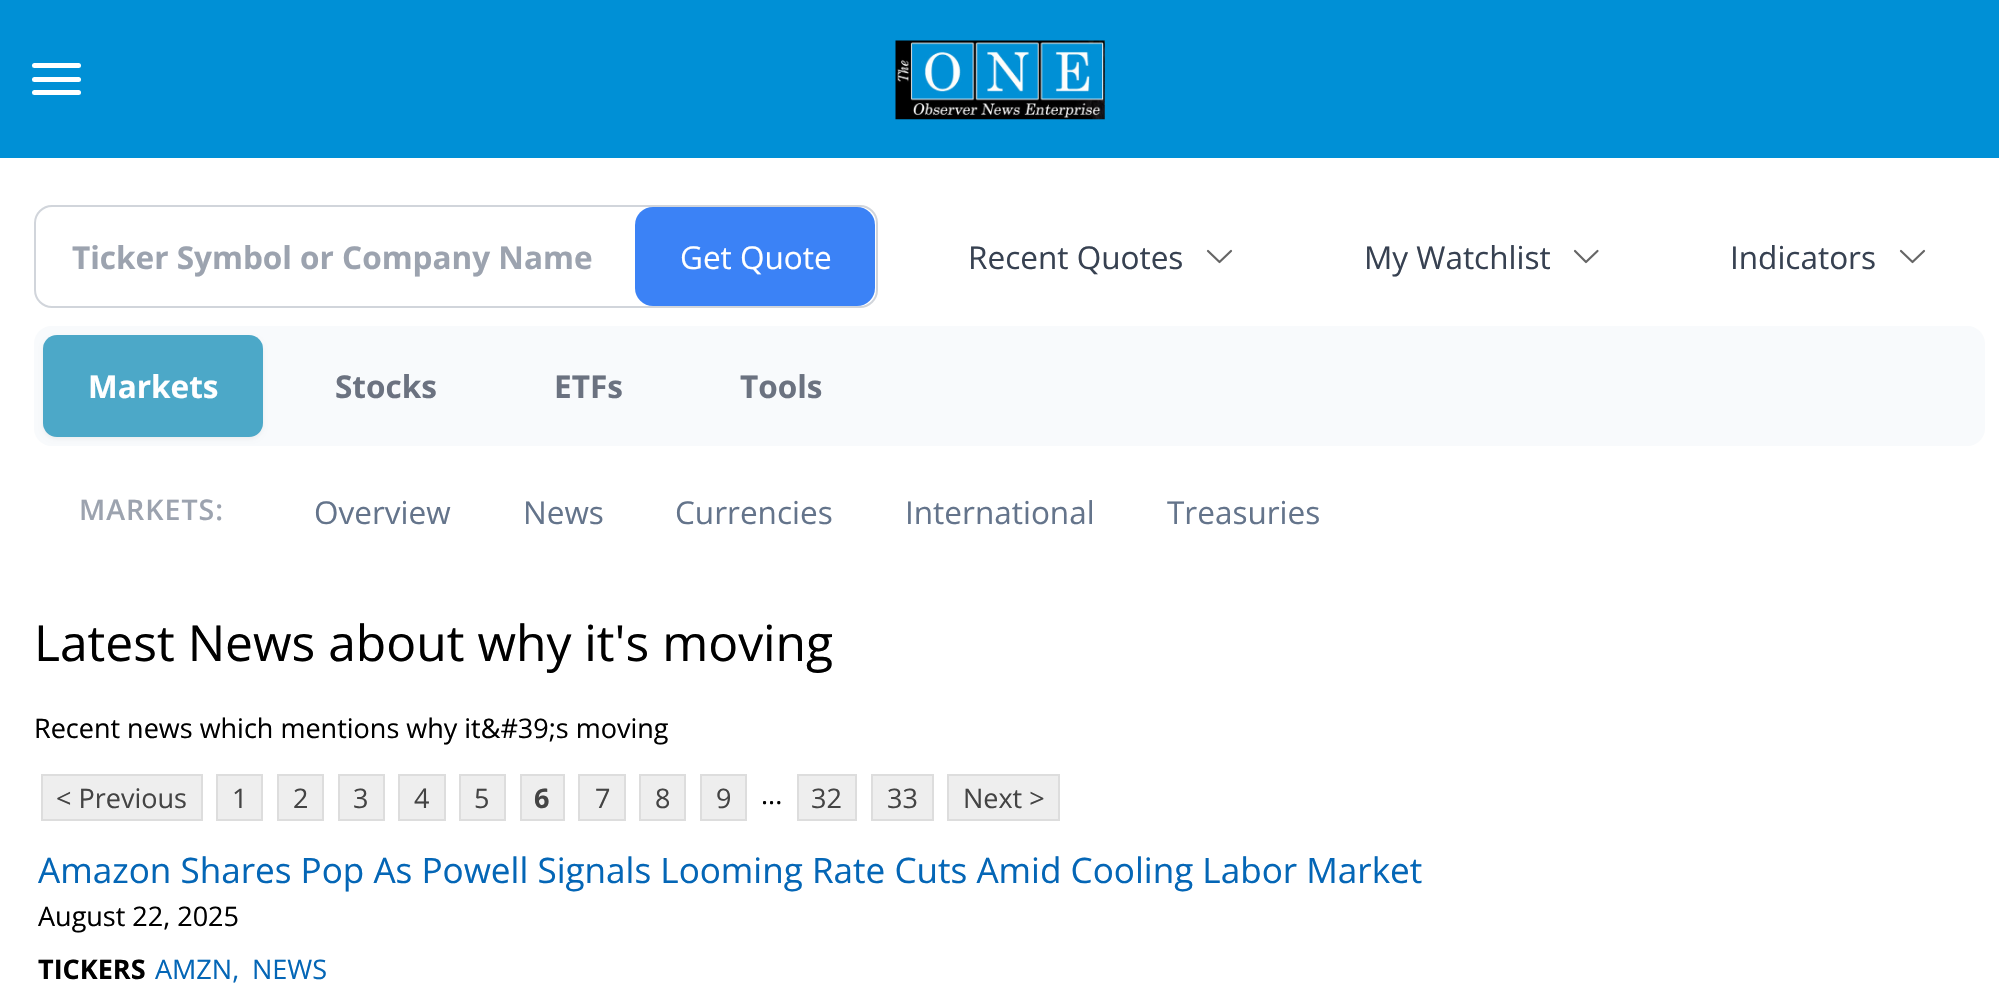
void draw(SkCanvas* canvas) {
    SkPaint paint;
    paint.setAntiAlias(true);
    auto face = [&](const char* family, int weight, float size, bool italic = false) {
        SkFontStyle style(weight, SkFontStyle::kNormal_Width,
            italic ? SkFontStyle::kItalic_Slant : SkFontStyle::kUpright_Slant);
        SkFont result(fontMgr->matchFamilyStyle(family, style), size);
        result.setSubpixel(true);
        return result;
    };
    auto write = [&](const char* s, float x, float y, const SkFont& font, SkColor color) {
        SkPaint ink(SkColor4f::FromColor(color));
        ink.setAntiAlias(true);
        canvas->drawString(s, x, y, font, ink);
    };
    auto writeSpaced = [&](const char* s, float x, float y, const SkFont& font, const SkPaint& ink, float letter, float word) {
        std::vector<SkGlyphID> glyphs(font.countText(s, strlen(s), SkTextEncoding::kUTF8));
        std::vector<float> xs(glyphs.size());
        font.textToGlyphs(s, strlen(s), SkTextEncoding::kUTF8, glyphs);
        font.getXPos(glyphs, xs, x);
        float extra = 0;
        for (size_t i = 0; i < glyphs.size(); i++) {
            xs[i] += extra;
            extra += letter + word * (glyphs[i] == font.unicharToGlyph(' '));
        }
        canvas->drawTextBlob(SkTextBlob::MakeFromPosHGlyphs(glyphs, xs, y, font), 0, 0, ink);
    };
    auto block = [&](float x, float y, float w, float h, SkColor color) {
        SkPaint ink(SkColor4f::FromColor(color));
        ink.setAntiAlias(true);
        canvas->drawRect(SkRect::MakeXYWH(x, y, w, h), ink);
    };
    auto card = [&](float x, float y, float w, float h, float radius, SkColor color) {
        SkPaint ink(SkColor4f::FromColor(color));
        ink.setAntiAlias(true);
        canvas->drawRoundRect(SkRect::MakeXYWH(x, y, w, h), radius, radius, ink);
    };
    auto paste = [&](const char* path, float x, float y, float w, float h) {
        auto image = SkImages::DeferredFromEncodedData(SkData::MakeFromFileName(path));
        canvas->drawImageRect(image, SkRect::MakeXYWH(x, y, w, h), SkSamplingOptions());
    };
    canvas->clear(SK_ColorWHITE);
    block(0, 0, 1999, 158, SkColorSetRGB(0, 144, 214));
    card(32, 63, 49, 5, 2.5f, SK_ColorWHITE);
    card(32, 77, 49, 5, 2.5f, SK_ColorWHITE);
    card(32, 90, 49, 5, 2.5f, SK_ColorWHITE);
    paste("pic1.png", 895, 40, 210, 80);
    paint.setStyle(SkPaint::kStroke_Style);
    paint.setStrokeWidth(2);
    paint.setColor(SkColorSetRGB(209, 213, 219));
    canvas->drawRoundRect(SkRect::MakeXYWH(35, 206, 842, 101), 17, 17, paint);
    auto kFont1 = face("Open Sans", 700, 31.5f);
    write("Ticker Symbol or Company Name", 72, 269, kFont1, SkColorSetRGB(156, 163, 175));
    card(635, 207, 240, 99, 18, SkColorSetRGB(59, 130, 246));
    auto kFont2 = face("Open Sans", 400, 31.5f);
    write("Get Quote", 680, 269, kFont2, SK_ColorWHITE);
    write("Recent Quotes", 968, 269, kFont2, SkColorSetRGB(55, 65, 81));
    paint.setStrokeWidth(2.2f);
    paint.setStrokeCap(SkPaint::kRound_Cap);
    paint.setStrokeJoin(SkPaint::kRound_Join);
    paint.setColor(SkColorSetRGB(102, 102, 102));
    canvas->drawPath(SkPathBuilder().moveTo(1231, 251).lineTo(1219.5f, 262).lineTo(1208, 251).detach(), paint);
    write("My Watchlist", 1364, 269, kFont2, SkColorSetRGB(55, 65, 81));
    canvas->drawPath(SkPathBuilder().moveTo(1597.5f, 251).lineTo(1586, 262).lineTo(1575, 251).detach(), paint);
    write("Indicators", 1730, 269, kFont2, SkColorSetRGB(55, 65, 81));
    canvas->drawPath(SkPathBuilder().moveTo(1924, 251).lineTo(1912.5f, 262).lineTo(1901, 251).detach(), paint);
    card(34, 326, 1951, 120, 18, SkColorSetRGB(248, 250, 252));
    paint.setStyle(SkPaint::kFill_Style);
    paint.setColor(SkColorSetARGB(13, 0, 0, 0));
    paint.setMaskFilter(SkMaskFilter::MakeBlur(kNormal_SkBlurStyle, 2));
    canvas->drawRoundRect(SkRect::MakeXYWH(43, 338, 220, 101), 14, 14, paint);
    paint.setMaskFilter(nullptr);
    card(43, 335, 220, 102, 14, SkColorSetRGB(76, 168, 200));
    write("Markets", 88, 398, kFont1, SK_ColorWHITE);
    write("Stocks", 335, 398, kFont1, SkColorSetRGB(107, 114, 128));
    write("ETFs", 554, 398, kFont1, SkColorSetRGB(107, 114, 128));
    write("Tools", 740, 398, kFont1, SkColorSetRGB(107, 114, 128));
    auto kFont3 = face("Open Sans", 600, 28.5f);
    paint.setColor(SkColorSetRGB(156, 163, 175));
    writeSpaced("MARKETS:", 79, 520, kFont3, paint, 1, 0);
    write("Overview", 314, 524, kFont2, SkColorSetRGB(100, 116, 139));
    write("News", 523, 524, kFont2, SkColorSetRGB(100, 116, 139));
    write("Currencies", 675, 524, kFont2, SkColorSetRGB(100, 116, 139));
    write("International", 905, 524, kFont2, SkColorSetRGB(100, 116, 139));
    write("Treasuries", 1167, 524, kFont2, SkColorSetRGB(100, 116, 139));
    auto kFont4 = face("Open Sans", 400, 49.75f);
    write("Latest News about why it's moving", 34, 661, kFont4, SK_ColorBLACK);
    auto kFont5 = face("Open Sans", 400, 27);
    write("Recent news which mentions why it&#39;s moving", 34, 738, kFont5, SK_ColorBLACK);
    paint.setColor(SkColorSetRGB(238, 238, 238));
    canvas->drawRect(SkRect::MakeXYWH(42, 775, 160, 45), paint);
    paint.setStyle(SkPaint::kStroke_Style);
    paint.setStrokeWidth(2);
    paint.setStrokeCap(SkPaint::kButt_Cap);
    paint.setStrokeJoin(SkPaint::kMiter_Join);
    paint.setColor(SkColorSetRGB(221, 221, 221));
    canvas->drawRect(SkRect::MakeXYWH(42, 775, 160, 45), paint);
    write("< Previous", 56, 808, kFont5, SkColorSetRGB(68, 68, 68));
    paint.setStyle(SkPaint::kFill_Style);
    paint.setColor(SkColorSetRGB(238, 238, 238));
    canvas->drawRect(SkRect::MakeXYWH(217, 775, 45, 45), paint);
    paint.setStyle(SkPaint::kStroke_Style);
    paint.setColor(SkColorSetRGB(221, 221, 221));
    canvas->drawRect(SkRect::MakeXYWH(217, 775, 45, 45), paint);
    write("1", 232, 808, kFont5, SkColorSetRGB(68, 68, 68));
    paint.setStyle(SkPaint::kFill_Style);
    paint.setColor(SkColorSetRGB(238, 238, 238));
    canvas->drawRect(SkRect::MakeXYWH(278, 775, 45, 45), paint);
    paint.setStyle(SkPaint::kStroke_Style);
    paint.setColor(SkColorSetRGB(221, 221, 221));
    canvas->drawRect(SkRect::MakeXYWH(278, 775, 45, 45), paint);
    write("2", 293, 808, kFont5, SkColorSetRGB(68, 68, 68));
    paint.setStyle(SkPaint::kFill_Style);
    paint.setColor(SkColorSetRGB(238, 238, 238));
    canvas->drawRect(SkRect::MakeXYWH(339, 775, 45, 45), paint);
    paint.setStyle(SkPaint::kStroke_Style);
    paint.setColor(SkColorSetRGB(221, 221, 221));
    canvas->drawRect(SkRect::MakeXYWH(339, 775, 45, 45), paint);
    write("3", 353, 808, kFont5, SkColorSetRGB(68, 68, 68));
    paint.setStyle(SkPaint::kFill_Style);
    paint.setColor(SkColorSetRGB(238, 238, 238));
    canvas->drawRect(SkRect::MakeXYWH(399, 775, 46, 45), paint);
    paint.setStyle(SkPaint::kStroke_Style);
    paint.setColor(SkColorSetRGB(221, 221, 221));
    canvas->drawRect(SkRect::MakeXYWH(399, 775, 46, 45), paint);
    write("4", 414, 808, kFont5, SkColorSetRGB(68, 68, 68));
    paint.setStyle(SkPaint::kFill_Style);
    paint.setColor(SkColorSetRGB(238, 238, 238));
    canvas->drawRect(SkRect::MakeXYWH(460, 775, 45, 45), paint);
    paint.setStyle(SkPaint::kStroke_Style);
    paint.setColor(SkColorSetRGB(221, 221, 221));
    canvas->drawRect(SkRect::MakeXYWH(460, 775, 45, 45), paint);
    write("5", 474, 808, kFont5, SkColorSetRGB(68, 68, 68));
    paint.setStyle(SkPaint::kFill_Style);
    paint.setColor(SkColorSetRGB(238, 238, 238));
    canvas->drawRect(SkRect::MakeXYWH(521, 775, 43, 45), paint);
    paint.setStyle(SkPaint::kStroke_Style);
    paint.setColor(SkColorSetRGB(221, 221, 221));
    canvas->drawRect(SkRect::MakeXYWH(521, 775, 43, 45), paint);
    auto kFont6 = face("Open Sans", 700, 27);
    write("6", 534, 808, kFont6, SkColorSetRGB(68, 68, 68));
    paint.setStyle(SkPaint::kFill_Style);
    paint.setColor(SkColorSetRGB(238, 238, 238));
    canvas->drawRect(SkRect::MakeXYWH(579, 775, 46, 45), paint);
    paint.setStyle(SkPaint::kStroke_Style);
    paint.setColor(SkColorSetRGB(221, 221, 221));
    canvas->drawRect(SkRect::MakeXYWH(579, 775, 46, 45), paint);
    write("7", 595, 808, kFont5, SkColorSetRGB(68, 68, 68));
    paint.setStyle(SkPaint::kFill_Style);
    paint.setColor(SkColorSetRGB(238, 238, 238));
    canvas->drawRect(SkRect::MakeXYWH(640, 775, 45, 45), paint);
    paint.setStyle(SkPaint::kStroke_Style);
    paint.setColor(SkColorSetRGB(221, 221, 221));
    canvas->drawRect(SkRect::MakeXYWH(640, 775, 45, 45), paint);
    write("8", 655, 808, kFont5, SkColorSetRGB(68, 68, 68));
    paint.setStyle(SkPaint::kFill_Style);
    paint.setColor(SkColorSetRGB(238, 238, 238));
    canvas->drawRect(SkRect::MakeXYWH(701, 775, 45, 45), paint);
    paint.setStyle(SkPaint::kStroke_Style);
    paint.setColor(SkColorSetRGB(221, 221, 221));
    canvas->drawRect(SkRect::MakeXYWH(701, 775, 45, 45), paint);
    write("9", 716, 808, kFont5, SkColorSetRGB(68, 68, 68));
    write("...", 761, 804, kFont5, SK_ColorBLACK);
    paint.setStyle(SkPaint::kFill_Style);
    paint.setColor(SkColorSetRGB(238, 238, 238));
    canvas->drawRect(SkRect::MakeXYWH(798, 775, 58, 45), paint);
    paint.setStyle(SkPaint::kStroke_Style);
    paint.setColor(SkColorSetRGB(221, 221, 221));
    canvas->drawRect(SkRect::MakeXYWH(798, 775, 58, 45), paint);
    write("32", 811, 808, kFont5, SkColorSetRGB(68, 68, 68));
    paint.setStyle(SkPaint::kFill_Style);
    paint.setColor(SkColorSetRGB(238, 238, 238));
    canvas->drawRect(SkRect::MakeXYWH(872, 775, 61, 45), paint);
    paint.setStyle(SkPaint::kStroke_Style);
    paint.setColor(SkColorSetRGB(221, 221, 221));
    canvas->drawRect(SkRect::MakeXYWH(872, 775, 61, 45), paint);
    write("33", 887, 808, kFont5, SkColorSetRGB(68, 68, 68));
    paint.setStyle(SkPaint::kFill_Style);
    paint.setColor(SkColorSetRGB(238, 238, 238));
    canvas->drawRect(SkRect::MakeXYWH(948, 775, 111, 45), paint);
    paint.setStyle(SkPaint::kStroke_Style);
    paint.setColor(SkColorSetRGB(221, 221, 221));
    canvas->drawRect(SkRect::MakeXYWH(948, 775, 111, 45), paint);
    write("Next >", 963, 808, kFont5, SkColorSetRGB(68, 68, 68));
    auto kFont7 = face("Open Sans", 400, 35.1f);
    write("Amazon Shares Pop As Powell Signals Looming Rate Cuts Amid Cooling Labor Market", 38, 883, kFont7, SkColorSetRGB(4, 102, 182));
    write("August 22, 2025", 38, 926, kFont5, SK_ColorBLACK);
    write("TICKERS", 38, 979, kFont6, SK_ColorBLACK);
    write("AMZN,", 155, 979, kFont5, SkColorSetRGB(4, 102, 182));
    write("NEWS", 252, 979, kFont5, SkColorSetRGB(4, 102, 182));
}
